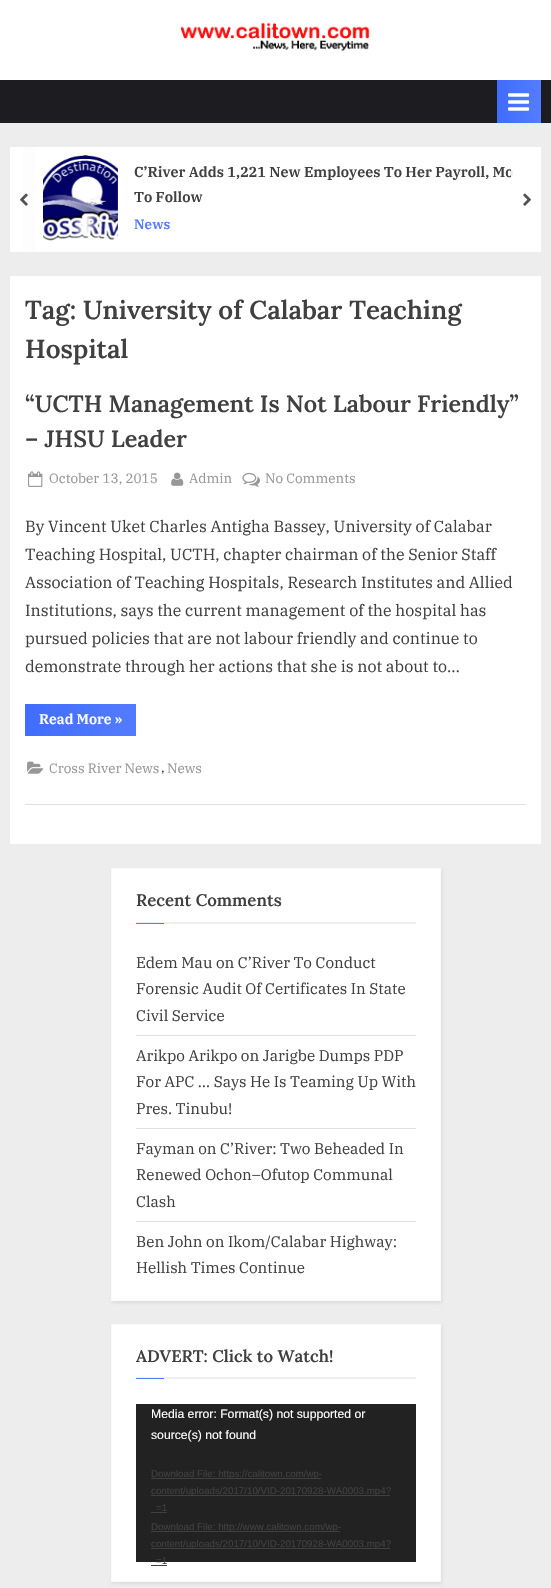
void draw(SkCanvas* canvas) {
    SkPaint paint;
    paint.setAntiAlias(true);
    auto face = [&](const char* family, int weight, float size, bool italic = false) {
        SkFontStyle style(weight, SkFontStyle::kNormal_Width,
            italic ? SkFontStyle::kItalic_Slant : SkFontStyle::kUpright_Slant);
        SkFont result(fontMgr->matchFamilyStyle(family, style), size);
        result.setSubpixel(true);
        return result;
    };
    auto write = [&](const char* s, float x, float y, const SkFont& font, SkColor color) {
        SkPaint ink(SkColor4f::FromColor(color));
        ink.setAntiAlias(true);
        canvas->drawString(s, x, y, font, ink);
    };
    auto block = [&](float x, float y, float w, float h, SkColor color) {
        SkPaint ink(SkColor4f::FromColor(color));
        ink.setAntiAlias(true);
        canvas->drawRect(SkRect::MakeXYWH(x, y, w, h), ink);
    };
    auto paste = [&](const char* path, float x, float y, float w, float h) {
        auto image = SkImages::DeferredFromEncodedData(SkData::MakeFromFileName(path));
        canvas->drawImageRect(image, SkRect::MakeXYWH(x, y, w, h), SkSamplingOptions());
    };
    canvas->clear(SkColorSetRGB(237, 237, 237));
    block(23, 147, 12, 105, SkColorSetRGB(253, 253, 253));
    block(0, 0, 551, 80, SK_ColorWHITE);
    paste("pic1.png", 180, 22, 190, 29);
    block(0, 80, 551, 43, SkColorSetRGB(28, 28, 33));
    {
        const SkColor colors[] = {SkColorSetRGB(64, 109, 255), SkColorSetRGB(83, 124, 255), SkColorSetRGB(64, 109, 255)};
        const float stops[] = {0, 0.51f, 1};
        const SkPoint ends[] = {{419, 102}, {499, 102}};
        paint.setShader(SkGradientShader::MakeLinear(ends, colors, stops, 3, SkTileMode::kClamp));
        paint.setAlpha(255);
    }
    canvas->drawRect(SkRect::MakeXYWH(497, 80, 2, 43), paint);
    {
        const SkColor colors[] = {SkColorSetRGB(64, 109, 255), SkColorSetRGB(83, 124, 255), SkColorSetRGB(64, 109, 255)};
        const float stops[] = {0, 0.51f, 1};
        const SkPoint ends[] = {{499, 102}, {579, 102}};
        paint.setShader(SkGradientShader::MakeLinear(ends, colors, stops, 3, SkTileMode::kClamp));
        paint.setAlpha(255);
    }
    canvas->drawRect(SkRect::MakeXYWH(499, 80, 42, 43), paint);
    paste("pic2.png", 508, 93, 22, 18);
    block(10, 147, 13, 105, SK_ColorWHITE);
    block(35, 147, 506, 105, SK_ColorWHITE);
    paste("pic3.png", 43, 155, 75, 86);
    auto kFont1 = face("IBM Plex Serif", 600, 14.4f);
    write("C’River Adds 1,221 New Employees To Her Payroll, Mo", 134, 177, kFont1, SkColorSetRGB(64, 64, 64));
    write("To Follow", 134, 202, kFont1, SkColorSetRGB(64, 64, 64));
    auto kFont2 = face("IBM Plex Serif", 600, 13.5f);
    write("News", 134, 229, kFont2, SkColorSetRGB(83, 124, 255));
    paste("pic4.png", 20, 193, 8, 13);
    block(511, 169, 2, 8, SkColorSetARGB(230, 255, 255, 255));
    paste("pic5.png", 523, 193, 8, 13);
    block(10, 276, 531, 568, SK_ColorWHITE);
    auto kFont3 = face("Lora", 600, 25.9f);
    write("Tag: University of Calabar Teaching", 25, 319, kFont3, SkColorSetRGB(64, 64, 64));
    write("Hospital", 25, 358, kFont3, SkColorSetRGB(64, 64, 64));
    block(25, 804, 501, 1, SkColorSetRGB(225, 225, 225));
    auto kFont4 = face("Lora", 600, 23.4f);
    write("“UCTH Management Is Not Labour Friendly”", 25, 412, kFont4, SkColorSetRGB(64, 64, 64));
    write("– JHSU Leader", 25, 447, kFont4, SkColorSetRGB(64, 64, 64));
    paste("pic6.png", 28, 471, 15, 16);
    auto kFont5 = face("IBM Plex Serif", 400, 13.5f);
    write("October 13, 2015", 49, 483, kFont5, SkColorSetRGB(151, 151, 151));
    paste("pic7.png", 171, 472, 13, 14);
    write("Admin", 189, 483, kFont5, SkColorSetRGB(151, 151, 151));
    paste("pic8.png", 242, 472, 18, 15);
    write("No Comments", 265, 483, kFont5, SkColorSetRGB(151, 151, 151));
    auto kFont6 = face("IBM Plex Serif", 400, 16);
    write("By Vincent Uket Charles Antigha Bassey, University of Calabar", 25, 532, kFont6, SkColorSetRGB(64, 64, 64));
    write("Teaching Hospital, UCTH, chapter chairman of the Senior Staff", 25, 560, kFont6, SkColorSetRGB(64, 64, 64));
    write("Association of Teaching Hospitals, Research Institutes and Allied", 25, 588, kFont6, SkColorSetRGB(64, 64, 64));
    write("Institutions, says the current management of the hospital has", 25, 616, kFont6, SkColorSetRGB(64, 64, 64));
    write("pursued policies that are not labour friendly and continue to", 25, 644, kFont6, SkColorSetRGB(64, 64, 64));
    write("demonstrate through her actions that she is not about to…", 25, 672, kFont6, SkColorSetRGB(64, 64, 64));
    {
        const SkColor colors[] = {SkColorSetRGB(64, 109, 255), SkColorSetRGB(83, 124, 255), SkColorSetRGB(64, 109, 255)};
        const float stops[] = {0, 0.51f, 1};
        const SkPoint ends[] = {{25, 720}, {247, 720}};
        paint.setShader(SkGradientShader::MakeLinear(ends, colors, stops, 3, SkTileMode::kClamp));
        paint.setAlpha(255);
    }
    canvas->drawRect(SkRect::MakeXYWH(25, 704, 111, 32), paint);
    auto kFont7 = face("IBM Plex Serif", 600, 14);
    write("Read More »", 39, 724, kFont7, SK_ColorWHITE);
    paste("pic9.png", 27, 761, 17, 13);
    write("Cross River News", 49, 773, kFont5, SkColorSetRGB(151, 151, 151));
    write(",", 161, 772, kFont5, SkColorSetRGB(64, 64, 64));
    write("News", 167, 773, kFont5, SkColorSetRGB(151, 151, 151));
    paint.setShader(nullptr);
    paint.setColor(SkColorSetARGB(18, 0, 0, 0));
    paint.setMaskFilter(SkMaskFilter::MakeBlur(kNormal_SkBlurStyle, 1.5f));
    canvas->drawRect(SkRect::MakeXYWH(112, 870, 330, 433), paint);
    paint.setMaskFilter(nullptr);
    paint.setColor(SK_ColorWHITE);
    canvas->drawRect(SkRect::MakeXYWH(111.5f, 868.5f, 329, 432), paint);
    paint.setStyle(SkPaint::kStroke_Style);
    paint.setStrokeWidth(1);
    paint.setColor(SkColorSetRGB(250, 250, 250));
    canvas->drawRect(SkRect::MakeXYWH(111.5f, 868.5f, 329, 432), paint);
    block(136, 922, 280, 2, SkColorSetRGB(238, 238, 238));
    auto kFont8 = face("Lora", 600, 16.75f);
    write("Recent Comments", 136, 906, kFont8, SkColorSetRGB(64, 64, 64));
    block(136, 923, 28, 1, SkColorSetRGB(83, 124, 255));
    block(136, 1035, 280, 1, SkColorSetRGB(225, 225, 225));
    auto kFont9 = face("IBM Plex Serif", 400, 15.25f);
    write("Edem Mau on C’River To Conduct", 136, 968, kFont9, SkColorSetRGB(64, 64, 64));
    write("Forensic Audit Of Certificates In State", 136, 994, kFont9, SkColorSetRGB(64, 64, 64));
    write("Civil Service", 136, 1021, kFont9, SkColorSetRGB(64, 64, 64));
    block(136, 1128, 280, 1, SkColorSetRGB(225, 225, 225));
    write("Arikpo Arikpo on Jarigbe Dumps PDP", 136, 1061, kFont9, SkColorSetRGB(64, 64, 64));
    write("For APC … Says He Is Teaming Up With", 136, 1087, kFont9, SkColorSetRGB(64, 64, 64));
    write("Pres. Tinubu!", 136, 1114, kFont9, SkColorSetRGB(64, 64, 64));
    block(136, 1221, 280, 1, SkColorSetRGB(225, 225, 225));
    write("Fayman on C’River: Two Beheaded In", 136, 1154, kFont9, SkColorSetRGB(64, 64, 64));
    write("Renewed Ochon–Ofutop Communal", 136, 1180, kFont9, SkColorSetRGB(64, 64, 64));
    write("Clash", 136, 1207, kFont9, SkColorSetRGB(64, 64, 64));
    write("Ben John on Ikom/Calabar Highway:", 136, 1247, kFont9, SkColorSetRGB(64, 64, 64));
    write("Hellish Times Continue", 136, 1273, kFont9, SkColorSetRGB(64, 64, 64));
    paint.setStyle(SkPaint::kFill_Style);
    paint.setColor(SkColorSetARGB(18, 0, 0, 0));
    paint.setMaskFilter(SkMaskFilter::MakeBlur(kNormal_SkBlurStyle, 1.5f));
    canvas->drawRect(SkRect::MakeXYWH(112, 1326, 330, 258), paint);
    paint.setMaskFilter(nullptr);
    paint.setColor(SK_ColorWHITE);
    canvas->drawRect(SkRect::MakeXYWH(111.5f, 1324.5f, 329, 257), paint);
    paint.setStyle(SkPaint::kStroke_Style);
    paint.setColor(SkColorSetRGB(250, 250, 250));
    canvas->drawRect(SkRect::MakeXYWH(111.5f, 1324.5f, 329, 257), paint);
    block(136, 1377, 280, 2, SkColorSetRGB(238, 238, 238));
    write("ADVERT: Click to Watch!", 136, 1362, kFont8, SkColorSetRGB(64, 64, 64));
    block(136, 1378, 28, 1, SkColorSetRGB(83, 124, 255));
    block(136, 1404, 280, 158, SkColorSetRGB(34, 34, 34));
    auto kFont10 = face("Liberation Sans", 400, 12.2f);
    write("Media error: Format(s) not supported or", 151, 1418, kFont10, SK_ColorWHITE);
    write("source(s) not found", 151, 1439, kFont10, SK_ColorWHITE);
    block(151, 1478, 170, 1, SkColorSetRGB(64, 64, 64));
    auto kFont11 = face("Liberation Sans", 400, 9.75f);
    write("Download File: https://calitown.com/wp-", 151, 1477, kFont11, SkColorSetRGB(64, 64, 64));
    block(151, 1495, 239, 1, SkColorSetRGB(64, 64, 64));
    write("content/uploads/2017/10/VID-20170928-WA0003.mp4?", 151, 1494, kFont11, SkColorSetRGB(64, 64, 64));
    write("=1", 156, 1511, kFont11, SkColorSetRGB(64, 64, 64));
    block(151, 1512, 16, 1, SkColorSetRGB(64, 64, 64));
    block(151, 1531, 189, 1, SkColorSetRGB(64, 64, 64));
    write("Download File: http://www.calitown.com/wp-", 151, 1530, kFont11, SkColorSetRGB(64, 64, 64));
    block(151, 1548, 239, 1, SkColorSetRGB(64, 64, 64));
    write("content/uploads/2017/10/VID-20170928-WA0003.mp4?", 151, 1547, kFont11, SkColorSetRGB(64, 64, 64));
    write("=1", 156, 1564, kFont11, SkColorSetRGB(64, 64, 64));
    block(151, 1565, 16, 1, SkColorSetRGB(64, 64, 64));
}
